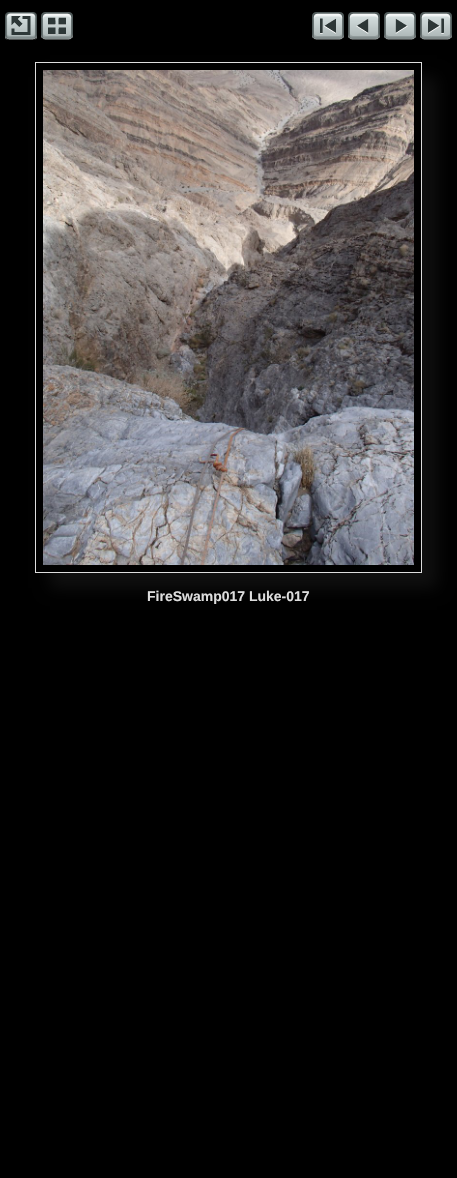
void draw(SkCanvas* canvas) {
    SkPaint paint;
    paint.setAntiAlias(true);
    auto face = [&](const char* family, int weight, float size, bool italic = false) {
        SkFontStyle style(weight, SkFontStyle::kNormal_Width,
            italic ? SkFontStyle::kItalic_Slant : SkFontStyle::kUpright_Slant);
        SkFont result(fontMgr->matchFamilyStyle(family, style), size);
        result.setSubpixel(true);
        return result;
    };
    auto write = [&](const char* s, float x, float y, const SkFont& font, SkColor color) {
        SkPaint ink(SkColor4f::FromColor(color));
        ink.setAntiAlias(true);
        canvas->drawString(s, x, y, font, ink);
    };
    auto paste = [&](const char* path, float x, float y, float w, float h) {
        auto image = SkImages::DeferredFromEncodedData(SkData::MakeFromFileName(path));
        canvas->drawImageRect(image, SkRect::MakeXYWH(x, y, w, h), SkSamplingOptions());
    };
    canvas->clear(SK_ColorBLACK);
    paste("pic1.png", 5, 12, 32, 28);
    paste("pic2.png", 41, 12, 32, 28);
    paste("pic3.png", 312, 12, 32, 28);
    paste("pic4.png", 348, 12, 32, 28);
    paste("pic5.png", 384, 12, 32, 28);
    paste("pic6.png", 420, 12, 32, 28);
    canvas->save();
    canvas->clipPath(SkPathBuilder(SkPathFillType::kEvenOdd).moveTo(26, 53).lineTo(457, 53).lineTo(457, 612).lineTo(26, 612).close().moveTo(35, 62).lineTo(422, 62).lineTo(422, 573).lineTo(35, 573).close().detach(), true);
    paint.setColor(SkColorSetARGB(77, 51, 51, 51));
    paint.setMaskFilter(SkMaskFilter::MakeBlur(kNormal_SkBlurStyle, 7.5f));
    canvas->drawRect(SkRect::MakeXYWH(50, 77, 387, 511), paint);
    paint.setMaskFilter(nullptr);
    canvas->restore();
    paint.setStyle(SkPaint::kStroke_Style);
    paint.setStrokeWidth(1);
    paint.setColor(SkColorSetRGB(221, 221, 221));
    canvas->drawRect(SkRect::MakeXYWH(35.5f, 62.5f, 386, 510), paint);
    paste("pic7.png", 43, 70, 371, 495);
    auto kFont1 = face("Liberation Sans", 700, 14);
    write("FireSwamp017 Luke-017", 147, 601, kFont1, SkColorSetRGB(221, 221, 221));
}
